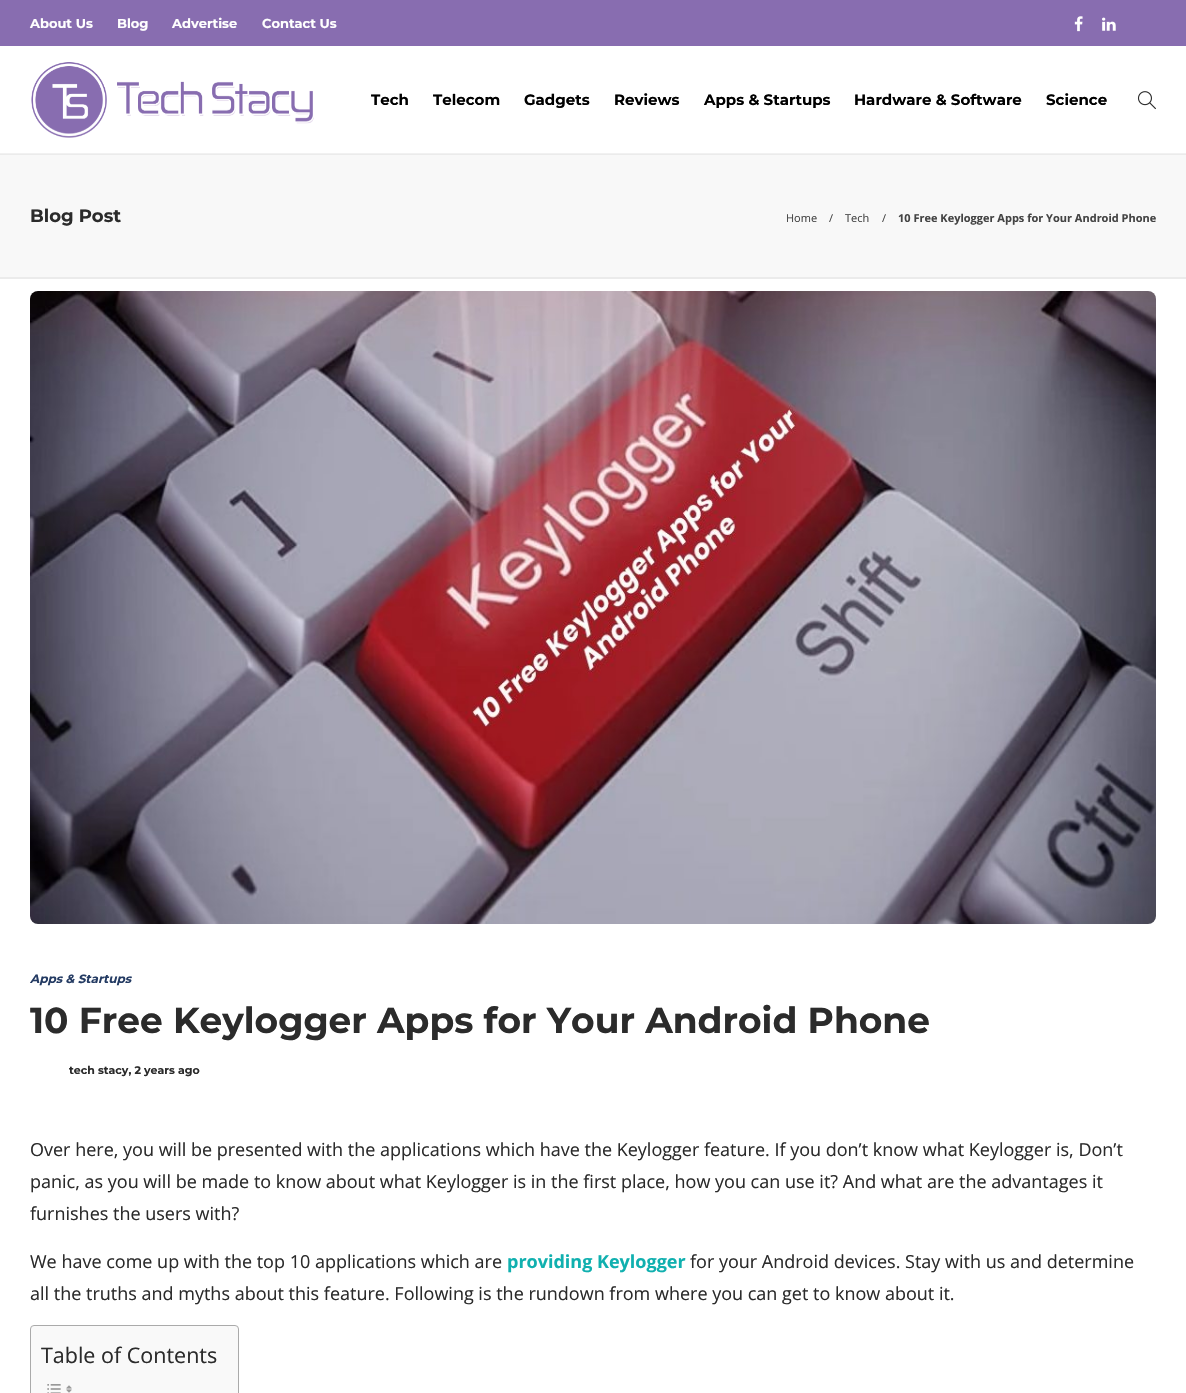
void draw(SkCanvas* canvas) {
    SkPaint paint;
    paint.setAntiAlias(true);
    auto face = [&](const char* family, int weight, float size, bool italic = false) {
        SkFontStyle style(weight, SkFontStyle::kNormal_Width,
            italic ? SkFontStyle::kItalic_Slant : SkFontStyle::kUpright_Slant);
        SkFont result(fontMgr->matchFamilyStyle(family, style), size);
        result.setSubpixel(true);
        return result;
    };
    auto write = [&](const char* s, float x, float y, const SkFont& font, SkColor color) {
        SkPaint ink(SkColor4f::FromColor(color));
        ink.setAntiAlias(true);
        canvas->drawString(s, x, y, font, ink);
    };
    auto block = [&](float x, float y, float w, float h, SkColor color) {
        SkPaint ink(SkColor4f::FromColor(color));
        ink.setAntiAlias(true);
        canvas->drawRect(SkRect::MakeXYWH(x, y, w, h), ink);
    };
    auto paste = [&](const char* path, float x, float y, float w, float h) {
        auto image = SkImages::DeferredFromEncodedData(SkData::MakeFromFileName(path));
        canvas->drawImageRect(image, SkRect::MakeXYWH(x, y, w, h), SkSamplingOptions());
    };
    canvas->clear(SK_ColorWHITE);
    block(0, 0, 1186, 46, SkColorSetRGB(136, 109, 176));
    auto kFont1 = face("Montserrat", 100, 13);
    write("About Us", 30, 28, kFont1, SK_ColorWHITE);
    write("Blog", 117, 28, kFont1, SK_ColorWHITE);
    write("Advertise", 172, 28, kFont1, SK_ColorWHITE);
    write("Contact Us", 262, 28, kFont1, SK_ColorWHITE);
    paste("pic1.png", 1074, 16, 9, 16);
    paste("pic2.png", 1102, 17, 14, 14);
    block(0, 153, 1186, 1, SkColorSetRGB(241, 241, 241));
    paste("pic3.png", 31, 62, 283, 76);
    auto kFont2 = face("Montserrat", 100, 15);
    write("Tech", 371, 105, kFont2, SK_ColorBLACK);
    write("Telecom", 433, 105, kFont2, SK_ColorBLACK);
    write("Gadgets", 524, 105, kFont2, SK_ColorBLACK);
    write("Reviews", 614, 105, kFont2, SK_ColorBLACK);
    write("Apps & Startups", 704, 105, kFont2, SK_ColorBLACK);
    write("Hardware & Software", 854, 105, kFont2, SK_ColorBLACK);
    write("Science", 1046, 105, kFont2, SK_ColorBLACK);
    paste("pic4.png", 1137, 91, 19, 19);
    block(0, 155, 1186, 122, SkColorSetRGB(248, 248, 248));
    block(0, 154, 1186, 1, SkColorSetRGB(235, 235, 235));
    block(0, 277, 1186, 2, SkColorSetRGB(235, 235, 235));
    auto kFont3 = face("Montserrat", 100, 18);
    write("Blog Post", 30, 222, kFont3, SkColorSetRGB(43, 43, 43));
    auto kFont4 = face("Open Sans", 400, 11);
    write("Home", 786, 222, kFont4, SkColorSetRGB(68, 68, 68));
    write("/", 829, 222, kFont4, SkColorSetRGB(68, 68, 68));
    write("Tech", 845, 222, kFont4, SkColorSetRGB(68, 68, 68));
    write("/", 882, 222, kFont4, SkColorSetRGB(68, 68, 68));
    auto kFont5 = face("Open Sans", 700, 11);
    write("10 Free Keylogger Apps for Your Android Phone", 898, 222, kFont5, SkColorSetRGB(68, 68, 68));
    paste("pic5.png", 30, 291, 1126, 633);
    auto kFont6 = face("Montserrat", 100, 12, true);
    write("Apps & Startups", 30, 983, kFont6, SkColorSetRGB(36, 59, 99));
    auto kFont7 = face("Montserrat", 100, 36);
    write("10 Free Keylogger Apps for Your Android Phone", 30, 1033, kFont7, SkColorSetRGB(43, 43, 43));
    auto kFont8 = face("Montserrat", 100, 11);
    write("tech stacy, 2 years ago", 69, 1074, kFont8, SkColorSetRGB(43, 43, 43));
    auto kFont9 = face("Open Sans", 400, 18);
    write("Over here, you will be presented with the applications which have the Keylogger feature. If you don’t know what Keylogger is, Don’t", 30, 1156, kFont9, SkColorSetRGB(43, 43, 43));
    write("panic, as you will be made to know about what Keylogger is in the first place, how you can use it? And what are the advantages it", 30, 1188, kFont9, SkColorSetRGB(43, 43, 43));
    write("furnishes the users with?", 30, 1220, kFont9, SkColorSetRGB(43, 43, 43));
    write("We have come up with the top 10 applications which are", 30, 1268, kFont9, SkColorSetRGB(43, 43, 43));
    auto kFont10 = face("Open Sans", 700, 18);
    write("providing Keylogger", 507, 1268, kFont10, SkColorSetRGB(16, 176, 175));
    write("for your Android devices. Stay with us and determine", 690, 1268, kFont9, SkColorSetRGB(43, 43, 43));
    write("all the truths and myths about this feature. Following is the rundown from where you can get to know about it.", 30, 1300, kFont9, SkColorSetRGB(43, 43, 43));
    paint.setColor(SkColorSetRGB(249, 249, 249));
    canvas->drawRoundRect(SkRect::MakeXYWH(30.5f, 1325.5f, 208, 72), 3.5f, 3.5f, paint);
    paint.setStyle(SkPaint::kStroke_Style);
    paint.setStrokeWidth(1);
    paint.setColor(SkColorSetRGB(170, 170, 170));
    canvas->drawRoundRect(SkRect::MakeXYWH(30.5f, 1325.5f, 208, 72), 3.5f, 3.5f, paint);
    auto kFont11 = face("Open Sans", 400, 21.5f);
    write("Table of Contents", 41, 1363, kFont11, SkColorSetRGB(43, 43, 43));
    paste("pic6.png", 47, 1384, 14, 9);
    paste("pic7.png", 66, 1385, 6, 8);
}
